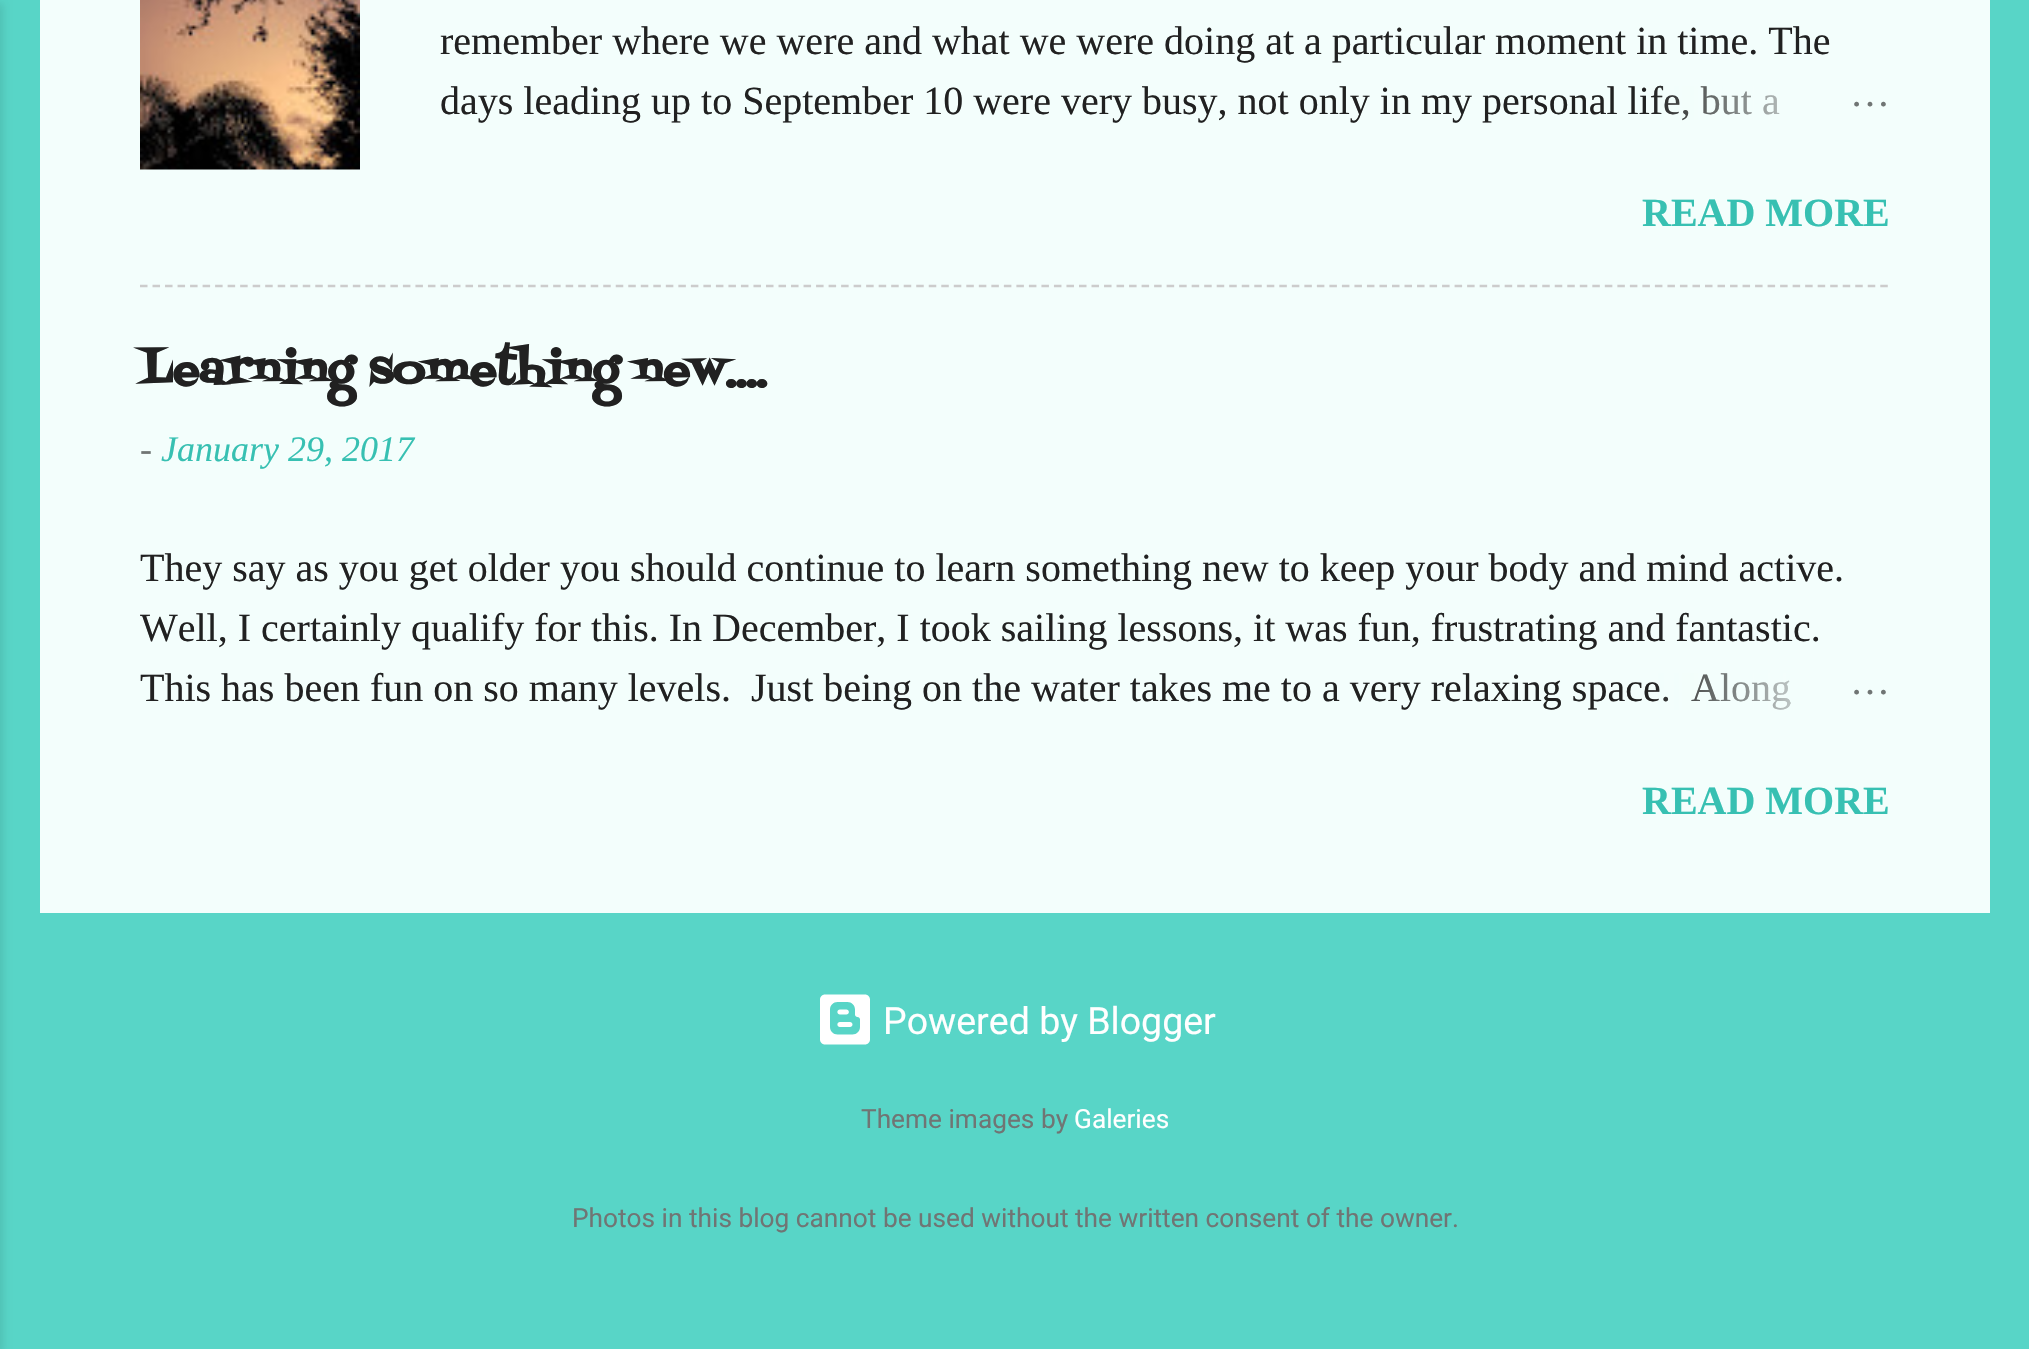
void draw(SkCanvas* canvas) {
    SkPaint paint;
    paint.setAntiAlias(true);
    auto face = [&](const char* family, int weight, float size, bool italic = false) {
        SkFontStyle style(weight, SkFontStyle::kNormal_Width,
            italic ? SkFontStyle::kItalic_Slant : SkFontStyle::kUpright_Slant);
        SkFont result(fontMgr->matchFamilyStyle(family, style), size);
        result.setSubpixel(true);
        return result;
    };
    auto write = [&](const char* s, float x, float y, const SkFont& font, SkColor color) {
        SkPaint ink(SkColor4f::FromColor(color));
        ink.setAntiAlias(true);
        canvas->drawString(s, x, y, font, ink);
    };
    auto block = [&](float x, float y, float w, float h, SkColor color) {
        SkPaint ink(SkColor4f::FromColor(color));
        ink.setAntiAlias(true);
        canvas->drawRect(SkRect::MakeXYWH(x, y, w, h), ink);
    };
    auto paste = [&](const char* path, float x, float y, float w, float h) {
        auto image = SkImages::DeferredFromEncodedData(SkData::MakeFromFileName(path));
        canvas->drawImageRect(image, SkRect::MakeXYWH(x, y, w, h), SkSamplingOptions());
    };
    canvas->clear(SkColorSetRGB(88, 213, 199));
    paint.setColor(SkColorSetARGB(26, 0, 0, 0));
    paint.setMaskFilter(SkMaskFilter::MakeBlur(kNormal_SkBlurStyle, 4));
    canvas->drawRect(SkRect::MakeXYWH(-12, 3, 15, 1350), paint);
    paint.setMaskFilter(nullptr);
    block(40, 0, 1950, 913, SkColorSetRGB(243, 254, 252));
    paste("pic1.png", 140, 0, 220, 170);
    auto kFont1 = face("Liberation Serif", 400, 40);
    write("remember where we were and what we were doing at a particular moment in time. The", 440, 54, kFont1, SkColorSetRGB(33, 33, 33));
    write("days leading up to September 10 were very busy, not only in my personal life, but a", 440, 114, kFont1, SkColorSetRGB(33, 33, 33));
    {
        const SkColor colors[] = {SkColorSetRGB(243, 254, 252), SkColorSetRGB(243, 254, 252), SkColorSetARGB(0, 243, 254, 252)};
        const float stops[] = {0, 0.2f, 1};
        const SkPoint ends[] = {{1890, 100}, {1650, 100}};
        paint.setShader(SkGradientShader::MakeLinear(ends, colors, stops, 3, SkTileMode::kClamp));
        paint.setAlpha(255);
    }
    canvas->drawRect(SkRect::MakeXYWH(1654, 86, 126, 34), paint);
    write("…", 1850, 106, kFont1, SkColorSetRGB(112, 117, 116));
    auto kFont2 = face("Liberation Serif", 700, 40);
    write("READ MORE", 1642, 226, kFont2, SkColorSetRGB(55, 192, 178));
    paint.setStyle(SkPaint::kStroke_Style);
    paint.setStrokeWidth(2.5f);
    paint.setShader(nullptr);
    paint.setColor(SkColorSetRGB(204, 204, 204));
    paint.setPathEffect(SkDashPathEffect::Make({{7.5f, 5.02f}}, 0));
    canvas->drawPath(SkPathBuilder().moveTo(140, 286).lineTo(1890, 286).detach(), paint);
    paint.setPathEffect(nullptr);
    auto kFont3 = face("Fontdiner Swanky", 700, 45);
    write("Learning something new....", 140, 384, kFont3, SkColorSetRGB(33, 33, 33));
    auto kFont4 = face("Liberation Serif", 400, 36, true);
    write("-", 140, 461, kFont4, SkColorSetRGB(112, 117, 116));
    write("January 29, 2017", 161, 461, kFont4, SkColorSetRGB(55, 192, 178));
    write("They say as you get older you should continue to learn something new to keep your body and mind active.", 140, 581, kFont1, SkColorSetRGB(33, 33, 33));
    write("Well, I certainly qualify for this. In December, I took sailing lessons, it was fun, frustrating and fantastic.", 140, 641, kFont1, SkColorSetRGB(33, 33, 33));
    write("This has been fun on so many levels.  Just being on the water takes me to a very relaxing space.", 140, 701, kFont1, SkColorSetRGB(33, 33, 33));
    write("Along", 1691, 701, kFont1, SkColorSetRGB(33, 33, 33));
    paint.setStyle(SkPaint::kFill_Style);
    {
        const SkColor colors[] = {SkColorSetRGB(243, 254, 252), SkColorSetRGB(243, 254, 252), SkColorSetARGB(0, 243, 254, 252)};
        const float stops[] = {0, 0.2f, 1};
        const SkPoint ends[] = {{1890, 688}, {1650, 688}};
        paint.setShader(SkGradientShader::MakeLinear(ends, colors, stops, 3, SkTileMode::kClamp));
        paint.setAlpha(255);
    }
    canvas->drawRect(SkRect::MakeXYWH(1654, 673, 136, 37), paint);
    write("…", 1850, 694, kFont1, SkColorSetRGB(112, 117, 116));
    write("READ MORE", 1642, 814, kFont2, SkColorSetRGB(55, 192, 178));
    paste("pic2.png", 820, 994, 50, 51);
    auto kFont5 = face("Roboto", 400, 37.5f);
    write("Powered by Blogger", 883, 1034, kFont5, SK_ColorWHITE);
    auto kFont6 = face("Roboto", 400, 26.25f);
    write("Theme images by", 861, 1128, kFont6, SkColorSetRGB(112, 117, 116));
    write("Galeries", 1074, 1128, kFont6, SK_ColorWHITE);
    write("Photos in this blog cannot be used without the written consent of the owner.", 572, 1227, kFont6, SkColorSetRGB(112, 117, 116));
}
